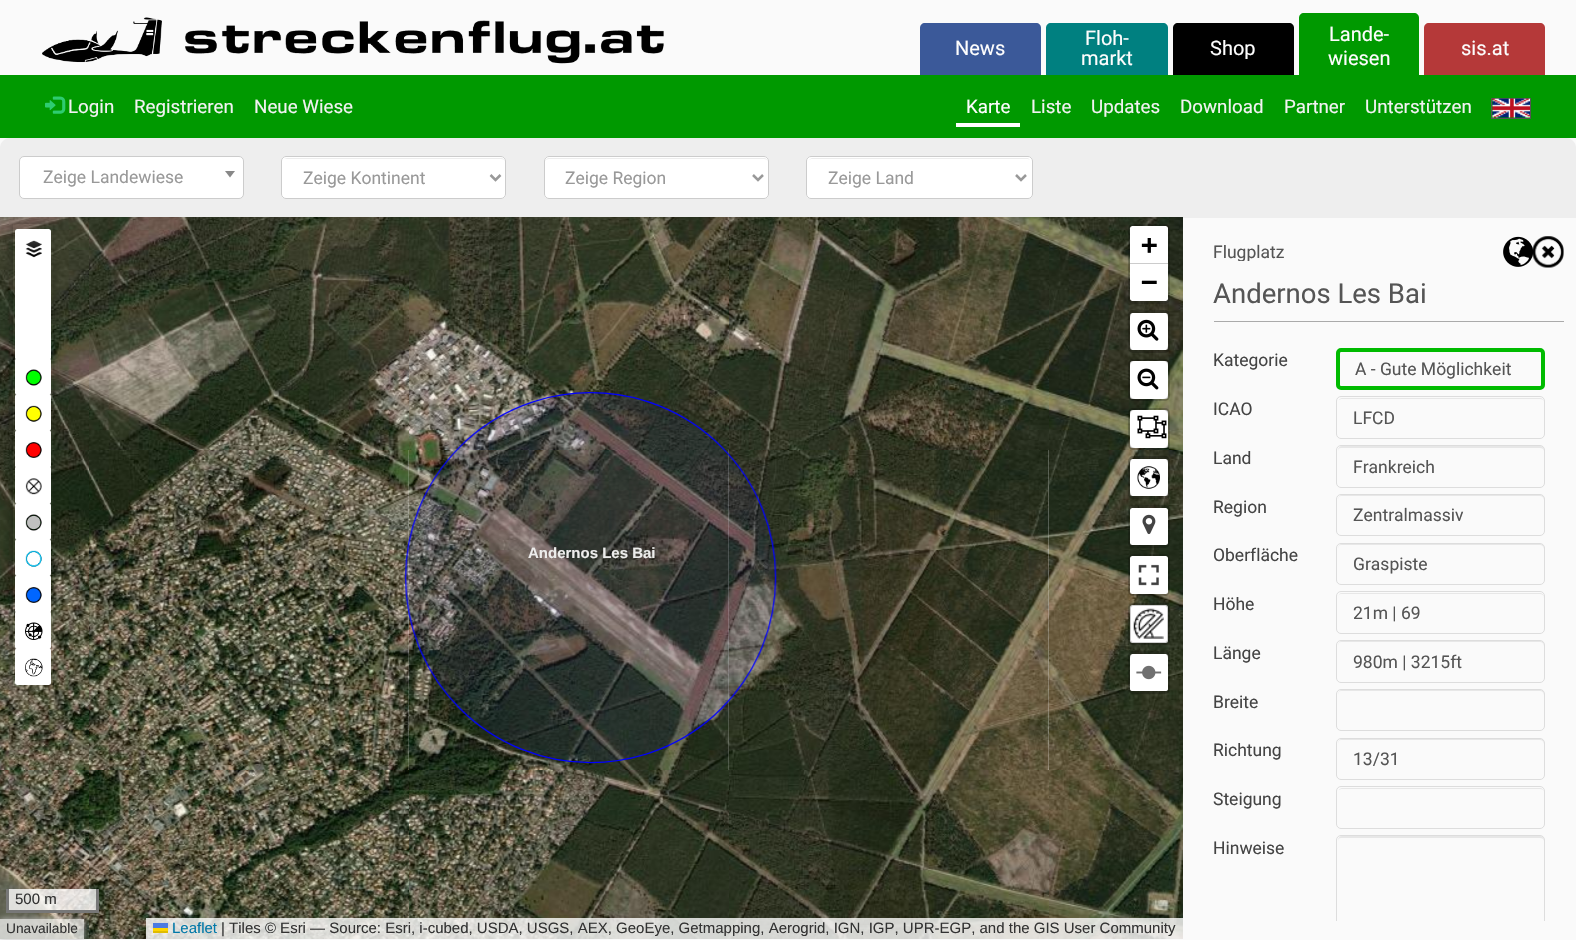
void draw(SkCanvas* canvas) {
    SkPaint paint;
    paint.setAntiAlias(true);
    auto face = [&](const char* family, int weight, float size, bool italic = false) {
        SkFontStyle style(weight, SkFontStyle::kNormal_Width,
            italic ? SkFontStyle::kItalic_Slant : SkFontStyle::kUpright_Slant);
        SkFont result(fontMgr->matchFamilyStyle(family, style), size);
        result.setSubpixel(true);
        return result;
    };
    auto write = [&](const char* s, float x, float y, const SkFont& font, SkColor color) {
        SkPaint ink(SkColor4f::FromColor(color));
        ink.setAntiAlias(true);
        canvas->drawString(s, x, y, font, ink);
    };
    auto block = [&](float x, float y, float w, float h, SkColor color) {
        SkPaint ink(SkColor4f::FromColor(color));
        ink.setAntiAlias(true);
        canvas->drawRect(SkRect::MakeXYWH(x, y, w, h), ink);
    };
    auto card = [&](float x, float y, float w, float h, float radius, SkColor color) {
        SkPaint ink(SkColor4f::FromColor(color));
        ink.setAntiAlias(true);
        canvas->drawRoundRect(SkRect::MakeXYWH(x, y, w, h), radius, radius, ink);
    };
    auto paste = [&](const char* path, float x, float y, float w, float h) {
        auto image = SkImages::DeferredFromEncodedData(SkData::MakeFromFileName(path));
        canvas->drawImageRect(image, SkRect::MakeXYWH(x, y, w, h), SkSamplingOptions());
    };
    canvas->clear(SkColorSetRGB(250, 250, 250));
    paste("pic1.png", 42, 17, 120, 46);
    paste("pic2.png", 185, 20, 479, 44);
    paint.setColor(SkColorSetRGB(59, 89, 153));
    canvas->drawPath(SkPathBuilder().moveTo(925, 23).lineTo(1036, 23).cubicTo(1039, 23, 1041, 25, 1041, 28).lineTo(1041, 75).lineTo(920, 75).lineTo(920, 28).cubicTo(920, 25, 922, 23, 925, 23).close().detach(), paint);
    auto kFont1 = face("Roboto", 400, 20);
    write("News", 955, 55, kFont1, SkColorSetRGB(253, 253, 253));
    paint.setColor(SkColorSetRGB(0, 128, 128));
    canvas->drawPath(SkPathBuilder().moveTo(1051, 23).lineTo(1163, 23).cubicTo(1166, 23, 1168, 25, 1168, 28).lineTo(1168, 75).lineTo(1046, 75).lineTo(1046, 28).cubicTo(1046, 25, 1048, 23, 1051, 23).close().detach(), paint);
    write("Floh-", 1085, 45, kFont1, SkColorSetRGB(253, 253, 253));
    write("markt", 1081, 65, kFont1, SkColorSetRGB(253, 253, 253));
    paint.setColor(SK_ColorBLACK);
    canvas->drawPath(SkPathBuilder().moveTo(1178, 23).lineTo(1289, 23).cubicTo(1292, 23, 1294, 25, 1294, 28).lineTo(1294, 75).lineTo(1173, 75).lineTo(1173, 28).cubicTo(1173, 25, 1175, 23, 1178, 23).close().detach(), paint);
    write("Shop", 1210, 55, kFont1, SkColorSetRGB(253, 253, 253));
    paint.setColor(SkColorSetRGB(0, 153, 0));
    canvas->drawPath(SkPathBuilder().moveTo(1304, 13).lineTo(1414, 13).cubicTo(1417, 13, 1419, 15, 1419, 18).lineTo(1419, 75).lineTo(1299, 75).lineTo(1299, 18).cubicTo(1299, 15, 1301, 13, 1304, 13).close().detach(), paint);
    write("Lande-", 1329, 41, kFont1, SkColorSetRGB(253, 253, 253));
    write("wiesen", 1328, 65, kFont1, SkColorSetRGB(253, 253, 253));
    paint.setColor(SkColorSetRGB(181, 57, 57));
    canvas->drawPath(SkPathBuilder().moveTo(1429, 23).lineTo(1540, 23).cubicTo(1543, 23, 1545, 25, 1545, 28).lineTo(1545, 75).lineTo(1424, 75).lineTo(1424, 28).cubicTo(1424, 25, 1426, 23, 1429, 23).close().detach(), paint);
    write("sis.at", 1461, 55, kFont1, SkColorSetRGB(253, 253, 253));
    block(0, 75, 1576, 63, SkColorSetRGB(0, 153, 0));
    paste("pic3.png", 45, 96, 21, 18);
    auto kFont2 = face("Roboto", 400, 18.75f);
    write("Login", 68, 113, kFont2, SkColorSetRGB(242, 242, 242));
    write("Registrieren", 134, 113, kFont2, SkColorSetRGB(242, 242, 242));
    write("Neue Wiese", 254, 113, kFont2, SkColorSetRGB(242, 242, 242));
    block(956, 123, 64, 4, SK_ColorWHITE);
    write("Karte", 966, 113, kFont2, SkColorSetRGB(253, 253, 253));
    write("Liste", 1031, 113, kFont2, SkColorSetRGB(242, 242, 242));
    write("Updates", 1091, 113, kFont2, SkColorSetRGB(242, 242, 242));
    write("Download", 1180, 113, kFont2, SkColorSetRGB(242, 242, 242));
    write("Partner", 1284, 113, kFont2, SkColorSetRGB(242, 242, 242));
    write("Unterstützen", 1365, 113, kFont2, SkColorSetRGB(242, 242, 242));
    paint.setStyle(SkPaint::kStroke_Style);
    paint.setStrokeWidth(1);
    paint.setColor(SkColorSetRGB(85, 85, 85));
    canvas->drawRect(SkRect::MakeXYWH(1491.5f, 98.5f, 39, 20), paint);
    paste("pic4.png", 1492, 98, 38, 20);
    paint.setStyle(SkPaint::kFill_Style);
    paint.setColor(SkColorSetRGB(238, 238, 238));
    canvas->drawPath(SkPathBuilder().moveTo(10, 138).lineTo(1566, 138).cubicTo(1571.5f, 138, 1576, 142.5f, 1576, 148).lineTo(1576, 218).lineTo(0, 218).lineTo(0, 148).cubicTo(0, 142.5f, 4.5f, 138, 10, 138).close().detach(), paint);
    paint.setColor(SK_ColorWHITE);
    canvas->drawRoundRect(SkRect::MakeXYWH(19.5f, 156.5f, 224, 42), 4.5f, 4.5f, paint);
    paint.setStyle(SkPaint::kStroke_Style);
    paint.setColor(SkColorSetRGB(204, 204, 204));
    canvas->drawRoundRect(SkRect::MakeXYWH(19.5f, 156.5f, 224, 42), 4.5f, 4.5f, paint);
    auto kFont3 = face("Roboto", 400, 17.5f);
    write("Zeige Landewiese", 43, 183, kFont3, SkColorSetRGB(153, 153, 153));
    paint.setStyle(SkPaint::kFill_Style);
    paint.setColor(SkColorSetRGB(136, 136, 136));
    canvas->drawPath(SkPathBuilder().moveTo(225, 171).lineTo(235, 171).lineTo(230, 177.5f).close().detach(), paint);
    card(281, 156, 225, 43, 5, SK_ColorWHITE);
    paint.setColor(SkColorSetRGB(236, 236, 236));
    canvas->drawPath(SkPathBuilder().moveTo(286, 159).lineTo(501, 159).cubicTo(503, 159, 505, 160, 505, 162).cubicTo(505, 160, 503, 158, 501, 158).lineTo(287, 158).cubicTo(286, 158, 285, 159, 284, 159).close().detach(), paint);
    paint.setStyle(SkPaint::kStroke_Style);
    paint.setColor(SkColorSetRGB(204, 204, 204));
    canvas->drawRoundRect(SkRect::MakeXYWH(281.5f, 156.5f, 224, 42), 4.5f, 4.5f, paint);
    paint.setStrokeWidth(2.5f);
    paint.setColor(SkColorSetRGB(153, 153, 153));
    canvas->drawPath(SkPathBuilder().moveTo(490.5f, 175).lineTo(495.5f, 180).lineTo(500.5f, 175).detach(), paint);
    write("Zeige Kontinent", 303, 184, kFont3, SkColorSetRGB(153, 153, 153));
    card(544, 156, 225, 43, 5, SK_ColorWHITE);
    paint.setStyle(SkPaint::kFill_Style);
    paint.setColor(SkColorSetRGB(236, 236, 236));
    canvas->drawPath(SkPathBuilder().moveTo(549, 159).lineTo(764, 159).cubicTo(766, 159, 768, 160, 768, 162).cubicTo(768, 160, 766, 158, 764, 158).lineTo(549, 158).cubicTo(547, 158, 545, 160, 545, 162).cubicTo(545, 160, 547, 159, 549, 159).close().detach(), paint);
    paint.setStyle(SkPaint::kStroke_Style);
    paint.setStrokeWidth(1);
    paint.setColor(SkColorSetRGB(204, 204, 204));
    canvas->drawRoundRect(SkRect::MakeXYWH(544.5f, 156.5f, 224, 42), 4.5f, 4.5f, paint);
    paint.setStrokeWidth(2.5f);
    paint.setColor(SkColorSetRGB(153, 153, 153));
    canvas->drawPath(SkPathBuilder().moveTo(753, 175).lineTo(758, 180).lineTo(763, 175).detach(), paint);
    write("Zeige Region", 565, 184, kFont3, SkColorSetRGB(153, 153, 153));
    card(806, 156, 227, 43, 5, SK_ColorWHITE);
    paint.setStyle(SkPaint::kFill_Style);
    paint.setColor(SkColorSetRGB(236, 236, 236));
    canvas->drawPath(SkPathBuilder().moveTo(811, 159).lineTo(1028, 159).lineTo(1030, 160).lineTo(1028, 158).lineTo(812, 158).lineTo(810, 159).lineTo(809, 160).close().detach(), paint);
    paint.setStyle(SkPaint::kStroke_Style);
    paint.setStrokeWidth(1);
    paint.setColor(SkColorSetRGB(204, 204, 204));
    canvas->drawRoundRect(SkRect::MakeXYWH(806.5f, 156.5f, 226, 42), 4.5f, 4.5f, paint);
    paint.setStrokeWidth(2.5f);
    paint.setColor(SkColorSetRGB(153, 153, 153));
    canvas->drawPath(SkPathBuilder().moveTo(1016, 175).lineTo(1021, 180).lineTo(1026, 175).detach(), paint);
    write("Zeige Land", 828, 184, kFont3, SkColorSetRGB(153, 153, 153));
    paste("pic23.png", 0, 217, 89, 233);
    paste("pic28.png", 0, 450, 89, 320);
    canvas->save();
    canvas->clipRect(SkRect::MakeXYWH(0, 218, 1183, 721));
    canvas->clipPath(SkPathBuilder(SkPathFillType::kEvenOdd).moveTo(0, 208).lineTo(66, 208).lineTo(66, 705).lineTo(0, 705).close().moveTo(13, 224).lineTo(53, 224).lineTo(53, 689).lineTo(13, 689).close().detach(), true);
    paint.setStyle(SkPaint::kFill_Style);
    paint.setColor(SkColorSetARGB(77, 0, 0, 0));
    paint.setMaskFilter(SkMaskFilter::MakeBlur(kNormal_SkBlurStyle, 5));
    canvas->drawRect(SkRect::MakeXYWH(10, 224, 40, 465), paint);
    paint.setMaskFilter(nullptr);
    canvas->restore();
    card(15, 229, 36, 37, 2.5f, SK_ColorWHITE);
    paste("pic5.png", 25, 240, 17, 18);
    card(15, 260, 36, 38, 2.5f, SK_ColorWHITE);
    card(15, 291, 36, 38, 2.5f, SK_ColorWHITE);
    card(15, 323, 36, 37, 2.5f, SK_ColorWHITE);
    card(15, 358, 36, 37, 2.5f, SK_ColorWHITE);
    paste("pic6.png", 25, 369, 17, 17);
    card(15, 394, 36, 37, 2.5f, SK_ColorWHITE);
    paste("pic7.png", 25, 405, 17, 17);
    card(15, 430, 36, 38, 2.5f, SK_ColorWHITE);
    paste("pic8.png", 25, 442, 17, 16);
    card(15, 466, 36, 38, 2.5f, SK_ColorWHITE);
    paste("pic9.png", 25, 478, 17, 17);
    card(15, 503, 36, 37, 2.5f, SK_ColorWHITE);
    paste("pic10.png", 25, 514, 17, 17);
    card(15, 539, 36, 37, 2.5f, SK_ColorWHITE);
    paste("pic11.png", 25, 550, 17, 17);
    card(15, 575, 36, 38, 2.5f, SK_ColorWHITE);
    paste("pic12.png", 25, 587, 17, 16);
    card(15, 611, 36, 38, 2.5f, SK_ColorWHITE);
    paste("pic13.png", 25, 622, 18, 18);
    card(15, 648, 36, 37, 2.5f, SK_ColorWHITE);
    paste("pic14.png", 25, 658, 18, 19);
    paste("pic27.png", 1049, 217, 134, 233);
    paint.setStyle(SkPaint::kStroke_Style);
    paint.setStrokeWidth(3);
    paint.setColor(SkColorSetARGB(51, 0, 0, 0));
    canvas->drawRoundRect(SkRect::MakeXYWH(1129.5f, 225.5f, 39, 77), 3.5f, 3.5f, paint);
    paint.setStyle(SkPaint::kFill_Style);
    paint.setColor(SK_ColorWHITE);
    canvas->drawPath(SkPathBuilder().moveTo(1132.5f, 226).lineTo(1165.5f, 226).cubicTo(1167, 226, 1168, 227, 1168, 228.5f).lineTo(1168, 264).lineTo(1130, 264).lineTo(1130, 228.5f).cubicTo(1130, 227, 1131, 226, 1132.5f, 226).close().detach(), paint);
    block(1130, 263, 38, 1, SkColorSetRGB(204, 204, 204));
    auto kFont4 = face("DejaVu Sans Mono", 700, 27.5f);
    write("+", 1141, 254, kFont4, SK_ColorBLACK);
    canvas->drawPath(SkPathBuilder().moveTo(1130, 264).lineTo(1168, 264).lineTo(1168, 298.5f).cubicTo(1168, 300, 1167, 301, 1165.5f, 301).lineTo(1132.5f, 301).cubicTo(1131, 301, 1130, 300, 1130, 298.5f).close().detach(), paint);
    write("−", 1141, 291, kFont4, SK_ColorBLACK);
    card(1130, 313, 38, 37, 2.5f, SK_ColorWHITE);
    paint.setStyle(SkPaint::kStroke_Style);
    paint.setColor(SkColorSetARGB(51, 0, 0, 0));
    canvas->drawRoundRect(SkRect::MakeXYWH(1129.5f, 311.5f, 39, 40), 3.5f, 3.5f, paint);
    card(1130, 313, 38, 37, 5, SK_ColorWHITE);
    paste("pic15.png", 1137, 319, 22, 22);
    card(1130, 361, 38, 38, 2.5f, SK_ColorWHITE);
    canvas->drawRoundRect(SkRect::MakeXYWH(1129.5f, 360.5f, 39, 39), 3.5f, 3.5f, paint);
    card(1130, 361, 38, 38, 5, SK_ColorWHITE);
    paste("pic16.png", 1137, 368, 22, 22);
    card(1130, 410, 38, 38, 2.5f, SK_ColorWHITE);
    canvas->drawRoundRect(SkRect::MakeXYWH(1129.5f, 409.5f, 39, 39), 3.5f, 3.5f, paint);
    card(1130, 410, 38, 38, 5, SK_ColorWHITE);
    paste("pic17.png", 1137, 415, 30, 24);
    paste("pic32.png", 1049, 450, 134, 320);
    card(1130, 459, 38, 37, 2.5f, SK_ColorWHITE);
    canvas->drawRoundRect(SkRect::MakeXYWH(1129.5f, 457.5f, 39, 40), 3.5f, 3.5f, paint);
    card(1130, 459, 38, 37, 5, SK_ColorWHITE);
    paste("pic18.png", 1137, 466, 23, 23);
    canvas->drawRoundRect(SkRect::MakeXYWH(1129.5f, 506.5f, 39, 40), 3.5f, 3.5f, paint);
    card(1130, 508, 38, 37, 2.5f, SK_ColorWHITE);
    paste("pic19.png", 1142, 514, 14, 21);
    canvas->drawRoundRect(SkRect::MakeXYWH(1129.5f, 555.5f, 39, 39), 3.5f, 3.5f, paint);
    card(1130, 556, 38, 38, 2.5f, SK_ColorWHITE);
    paste("pic20.png", 1138, 564, 21, 22);
    card(1130, 605, 38, 38, 2.5f, SK_ColorWHITE);
    paste("pic21.png", 1133, 608, 31, 31);
    canvas->drawRoundRect(SkRect::MakeXYWH(1129.5f, 604.5f, 39, 39), 3.5f, 3.5f, paint);
    card(1130, 654, 38, 37, 2.5f, SK_ColorWHITE);
    canvas->drawRoundRect(SkRect::MakeXYWH(1129.5f, 652.5f, 39, 40), 3.5f, 3.5f, paint);
    paint.setStyle(SkPaint::kFill_Style);
    paint.setColor(SK_ColorWHITE);
    canvas->drawPath(SkPathBuilder().moveTo(1135, 654).lineTo(1163, 654).cubicTo(1166, 654, 1168, 656, 1168, 659).lineTo(1168, 688.5f).cubicTo(1168, 690, 1167, 691, 1165.5f, 691).lineTo(1132.5f, 691).cubicTo(1131, 691, 1130, 690, 1130, 688.5f).lineTo(1130, 659).cubicTo(1130, 656, 1132, 654, 1135, 654).close().detach(), paint);
    paste("pic22.png", 1136, 665, 26, 15);
    paste("pic33.png", 0, 770, 89, 169);
    paste("pic34.png", 89, 770, 320, 169);
    block(9, 889, 87, 21, SkColorSetARGB(204, 255, 255, 255));
    block(96, 889, 3, 24, SkColorSetRGB(119, 119, 119));
    block(6, 910, 93, 3, SkColorSetRGB(119, 119, 119));
    block(6, 889, 3, 24, SkColorSetRGB(119, 119, 119));
    auto kFont5 = face("Liberation Sans", 400, 15);
    write("500 m", 15, 904, kFont5, SkColorSetRGB(51, 51, 51));
    canvas->save();
    canvas->clipPath(SkPathBuilder(SkPathFillType::kEvenOdd).moveTo(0, 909).lineTo(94, 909).lineTo(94, 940).lineTo(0, 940).close().moveTo(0, 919).lineTo(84, 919).lineTo(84, 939).lineTo(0, 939).close().detach(), true);
    paint.setColor(SkColorSetRGB(187, 187, 187));
    paint.setMaskFilter(SkMaskFilter::MakeBlur(kNormal_SkBlurStyle, 3));
    canvas->drawRect(SkRect::MakeXYWH(0, 919, 84, 20), paint);
    paint.setMaskFilter(nullptr);
    canvas->restore();
    block(0, 919, 84, 20, SkColorSetARGB(179, 255, 255, 255));
    auto kFont6 = face("Liberation Sans", 400, 13.75f);
    write("Unavailable", 6, 933, kFont6, SkColorSetRGB(51, 51, 51));
    paste("pic35.png", 409, 770, 320, 169);
    paste("pic36.png", 729, 770, 320, 169);
    paste("pic37.png", 1049, 770, 134, 169);
    block(146, 918, 1037, 21, SkColorSetARGB(204, 255, 255, 255));
    write("Leaflet", 172, 933, kFont5, SkColorSetRGB(0, 120, 168));
    block(153, 923, 15, 5, SkColorSetRGB(76, 123, 225));
    block(153, 928, 15, 3, SkColorSetRGB(255, 213, 0));
    block(153, 931, 15, 2, SkColorSetRGB(224, 188, 0));
    write("| Tiles © Esri — Source: Esri, i-cubed, USDA, USGS, AEX, GeoEye, Getmapping, Aerogrid, IGN, IGP, UPR-EGP, and the GIS User Community", 221, 933, kFont5, SkColorSetRGB(51, 51, 51));
    paste("pic24.png", 89, 217, 320, 233);
    paste("pic25.png", 409, 217, 320, 233);
    paste("pic26.png", 729, 217, 320, 233);
    paste("pic30.png", 408, 450, 321, 320);
    paste("pic29.png", 89, 450, 320, 320);
    paste("pic31.png", 728, 450, 321, 320);
    paste("pic38.png", 404, 392, 373, 372);
    auto kFont7 = face("Liberation Sans", 700, 15);
    write("Andernos Les Bai", 528, 558, kFont7, SkColorSetRGB(237, 237, 236));
    canvas->save();
    canvas->clipRect(SkRect::MakeXYWH(1214, 241, 270, 20));
    write("Flugplatz", 1213, 258, kFont3, SkColorSetRGB(85, 85, 85));
    canvas->restore();
    paste("pic39.png", 1503, 236, 31, 31);
    paste("pic40.png", 1532, 236, 32, 32);
    auto kFont8 = face("Roboto", 400, 27.5f);
    write("Andernos Les Bai", 1213, 303, kFont8, SkColorSetRGB(85, 85, 85));
    block(1214, 321, 350, 1, SkColorSetRGB(170, 170, 170));
    write("Kategorie", 1213, 366, kFont3, SkColorSetRGB(68, 68, 68));
    paint.setColor(SkColorSetRGB(231, 231, 231));
    canvas->drawPath(SkPathBuilder().moveTo(1341, 352).lineTo(1540, 352).cubicTo(1541, 352, 1541, 353, 1541, 354).cubicTo(1541, 353, 1541, 351, 1540, 351).lineTo(1341, 351).cubicTo(1340, 351, 1340, 353, 1340, 354).close().detach(), paint);
    paint.setStyle(SkPaint::kStroke_Style);
    paint.setStrokeWidth(4);
    paint.setColor(SkColorSetRGB(0, 187, 0));
    canvas->drawRoundRect(SkRect::MakeXYWH(1338, 350, 205, 38), 3, 3, paint);
    write("A - Gute Möglichkeit", 1355, 375, kFont3, SkColorSetRGB(85, 85, 85));
    write("ICAO", 1213, 415, kFont3, SkColorSetRGB(68, 68, 68));
    paint.setStyle(SkPaint::kFill_Style);
    paint.setColor(SkColorSetRGB(231, 231, 231));
    canvas->drawPath(SkPathBuilder().moveTo(1341, 399).lineTo(1540, 399).cubicTo(1542, 399, 1544, 400, 1544, 402).cubicTo(1544, 400, 1542, 398, 1540, 398).lineTo(1342, 398).cubicTo(1341, 398, 1339, 399, 1339, 400).close().detach(), paint);
    paint.setStyle(SkPaint::kStroke_Style);
    paint.setStrokeWidth(1);
    paint.setColor(SkColorSetRGB(221, 221, 221));
    canvas->drawRoundRect(SkRect::MakeXYWH(1336.5f, 396.5f, 208, 42), 4.5f, 4.5f, paint);
    write("LFCD", 1353, 424, kFont3, SkColorSetRGB(85, 85, 85));
    write("Land", 1213, 464, kFont3, SkColorSetRGB(68, 68, 68));
    paint.setStyle(SkPaint::kFill_Style);
    paint.setColor(SkColorSetRGB(231, 231, 231));
    canvas->drawPath(SkPathBuilder().moveTo(1341, 448).lineTo(1540, 448).cubicTo(1542, 448, 1544, 449, 1544, 451).lineTo(1544, 450).cubicTo(1544, 448, 1542, 446, 1540, 446).lineTo(1342, 446).cubicTo(1340, 446, 1338, 448, 1338, 450).lineTo(1338, 451).cubicTo(1338, 449, 1339, 448, 1341, 448).close().detach(), paint);
    paint.setStyle(SkPaint::kStroke_Style);
    paint.setColor(SkColorSetRGB(221, 221, 221));
    canvas->drawRoundRect(SkRect::MakeXYWH(1336.5f, 445.5f, 208, 42), 4.5f, 4.5f, paint);
    write("Frankreich", 1353, 473, kFont3, SkColorSetRGB(85, 85, 85));
    write("Region", 1213, 513, kFont3, SkColorSetRGB(68, 68, 68));
    paint.setStyle(SkPaint::kFill_Style);
    paint.setColor(SkColorSetRGB(231, 231, 231));
    canvas->drawPath(SkPathBuilder().moveTo(1341, 496).lineTo(1540, 496).cubicTo(1542, 496, 1544, 498, 1544, 500).lineTo(1544, 499).cubicTo(1544, 497, 1542, 495, 1540, 495).lineTo(1342, 495).cubicTo(1340, 495, 1338, 497, 1338, 499).lineTo(1338, 500).cubicTo(1338, 498, 1339, 496, 1341, 496).close().detach(), paint);
    paint.setStyle(SkPaint::kStroke_Style);
    paint.setColor(SkColorSetRGB(221, 221, 221));
    canvas->drawRoundRect(SkRect::MakeXYWH(1336.5f, 494.5f, 208, 41), 4.5f, 4.5f, paint);
    write("Zentralmassiv", 1353, 521, kFont3, SkColorSetRGB(85, 85, 85));
    write("Oberfläche", 1213, 561, kFont3, SkColorSetRGB(68, 68, 68));
    paint.setStyle(SkPaint::kFill_Style);
    paint.setColor(SkColorSetRGB(231, 231, 231));
    canvas->drawPath(SkPathBuilder().moveTo(1341, 545).lineTo(1540, 545).cubicTo(1542, 545, 1544, 547, 1544, 549).lineTo(1544, 548).cubicTo(1544, 546, 1542, 544, 1540, 544).lineTo(1342, 544).cubicTo(1340, 544, 1338, 546, 1338, 548).lineTo(1338, 549).cubicTo(1338, 547, 1339, 545, 1341, 545).close().detach(), paint);
    paint.setStyle(SkPaint::kStroke_Style);
    paint.setColor(SkColorSetRGB(221, 221, 221));
    canvas->drawRoundRect(SkRect::MakeXYWH(1336.5f, 543.5f, 208, 41), 4.5f, 4.5f, paint);
    write("Graspiste", 1353, 570, kFont3, SkColorSetRGB(85, 85, 85));
    write("Höhe", 1213, 610, kFont3, SkColorSetRGB(68, 68, 68));
    paint.setStyle(SkPaint::kFill_Style);
    paint.setColor(SkColorSetRGB(231, 231, 231));
    canvas->drawPath(SkPathBuilder().moveTo(1341, 594).lineTo(1540, 594).cubicTo(1542, 594, 1544, 595, 1544, 598).lineTo(1544, 597).cubicTo(1544, 595, 1542, 593, 1540, 593).lineTo(1342, 593).cubicTo(1340, 593, 1338, 595, 1338, 597).lineTo(1338, 598).cubicTo(1338, 595, 1339, 594, 1341, 594).close().detach(), paint);
    paint.setStyle(SkPaint::kStroke_Style);
    paint.setColor(SkColorSetRGB(221, 221, 221));
    canvas->drawRoundRect(SkRect::MakeXYWH(1336.5f, 591.5f, 208, 42), 4.5f, 4.5f, paint);
    write("21m | 69", 1353, 619, kFont3, SkColorSetRGB(85, 85, 85));
    write("Länge", 1213, 659, kFont3, SkColorSetRGB(68, 68, 68));
    paint.setStyle(SkPaint::kFill_Style);
    paint.setColor(SkColorSetRGB(231, 231, 231));
    canvas->drawPath(SkPathBuilder().moveTo(1341, 642).lineTo(1540, 642).cubicTo(1542, 642, 1544, 644, 1544, 646).lineTo(1544, 645).cubicTo(1544, 643, 1542, 641, 1540, 641).lineTo(1342, 641).cubicTo(1340, 641, 1338, 643, 1338, 645).lineTo(1338, 646).cubicTo(1338, 644, 1339, 642, 1341, 642).close().detach(), paint);
    paint.setStyle(SkPaint::kStroke_Style);
    paint.setColor(SkColorSetRGB(221, 221, 221));
    canvas->drawRoundRect(SkRect::MakeXYWH(1336.5f, 640.5f, 208, 42), 4.5f, 4.5f, paint);
    write("980m | 3215ft", 1353, 668, kFont3, SkColorSetRGB(85, 85, 85));
    write("Breite", 1213, 708, kFont3, SkColorSetRGB(68, 68, 68));
    paint.setStyle(SkPaint::kFill_Style);
    paint.setColor(SkColorSetRGB(231, 231, 231));
    canvas->drawPath(SkPathBuilder().moveTo(1341, 691).lineTo(1540, 691).cubicTo(1542, 691, 1544, 693, 1544, 695).lineTo(1544, 694).cubicTo(1544, 692, 1542, 690, 1540, 690).lineTo(1342, 690).cubicTo(1340, 690, 1338, 692, 1338, 694).lineTo(1338, 695).cubicTo(1338, 693, 1339, 691, 1341, 691).close().detach(), paint);
    paint.setStyle(SkPaint::kStroke_Style);
    paint.setColor(SkColorSetRGB(221, 221, 221));
    canvas->drawRoundRect(SkRect::MakeXYWH(1336.5f, 689.5f, 208, 41), 4.5f, 4.5f, paint);
    write("Richtung", 1213, 756, kFont3, SkColorSetRGB(68, 68, 68));
    paint.setStyle(SkPaint::kFill_Style);
    paint.setColor(SkColorSetRGB(231, 231, 231));
    canvas->drawPath(SkPathBuilder().moveTo(1341, 740).lineTo(1540, 740).cubicTo(1542, 740, 1544, 742, 1544, 744).lineTo(1544, 743).cubicTo(1544, 741, 1542, 739, 1540, 739).lineTo(1342, 739).cubicTo(1340, 739, 1338, 741, 1338, 743).lineTo(1338, 744).cubicTo(1338, 742, 1339, 740, 1341, 740).close().detach(), paint);
    paint.setStyle(SkPaint::kStroke_Style);
    paint.setColor(SkColorSetRGB(221, 221, 221));
    canvas->drawRoundRect(SkRect::MakeXYWH(1336.5f, 738.5f, 208, 41), 4.5f, 4.5f, paint);
    write("13/31", 1353, 765, kFont3, SkColorSetRGB(85, 85, 85));
    write("Steigung", 1213, 805, kFont3, SkColorSetRGB(68, 68, 68));
    paint.setStyle(SkPaint::kFill_Style);
    paint.setColor(SkColorSetRGB(231, 231, 231));
    canvas->drawPath(SkPathBuilder().moveTo(1341, 789).lineTo(1540, 789).cubicTo(1542, 789, 1544, 790, 1544, 792).cubicTo(1544, 790, 1542, 788, 1540, 788).lineTo(1342, 788).cubicTo(1341, 788, 1339, 789, 1339, 790).close().detach(), paint);
    paint.setStyle(SkPaint::kStroke_Style);
    paint.setColor(SkColorSetRGB(221, 221, 221));
    canvas->drawRoundRect(SkRect::MakeXYWH(1336.5f, 786.5f, 208, 42), 4.5f, 4.5f, paint);
    write("Hinweise", 1213, 854, kFont3, SkColorSetRGB(68, 68, 68));
    paint.setStyle(SkPaint::kFill_Style);
    paint.setColor(SkColorSetRGB(231, 231, 231));
    canvas->drawPath(SkPathBuilder().moveTo(1341, 838).lineTo(1540, 838).cubicTo(1542, 838, 1544, 839, 1544, 841).lineTo(1544, 840).cubicTo(1544, 838, 1542, 836, 1540, 836).lineTo(1342, 836).cubicTo(1340, 836, 1338, 838, 1338, 840).lineTo(1338, 841).cubicTo(1338, 839, 1339, 838, 1341, 838).close().detach(), paint);
    canvas->save();
    canvas->clipRect(SkRect::MakeXYWH(1195, 348, 369, 573));
    paint.setStyle(SkPaint::kStroke_Style);
    paint.setColor(SkColorSetRGB(221, 221, 221));
    canvas->drawRoundRect(SkRect::MakeXYWH(1336.5f, 835.5f, 208, 92), 4.5f, 4.5f, paint);
    canvas->restore();
}
